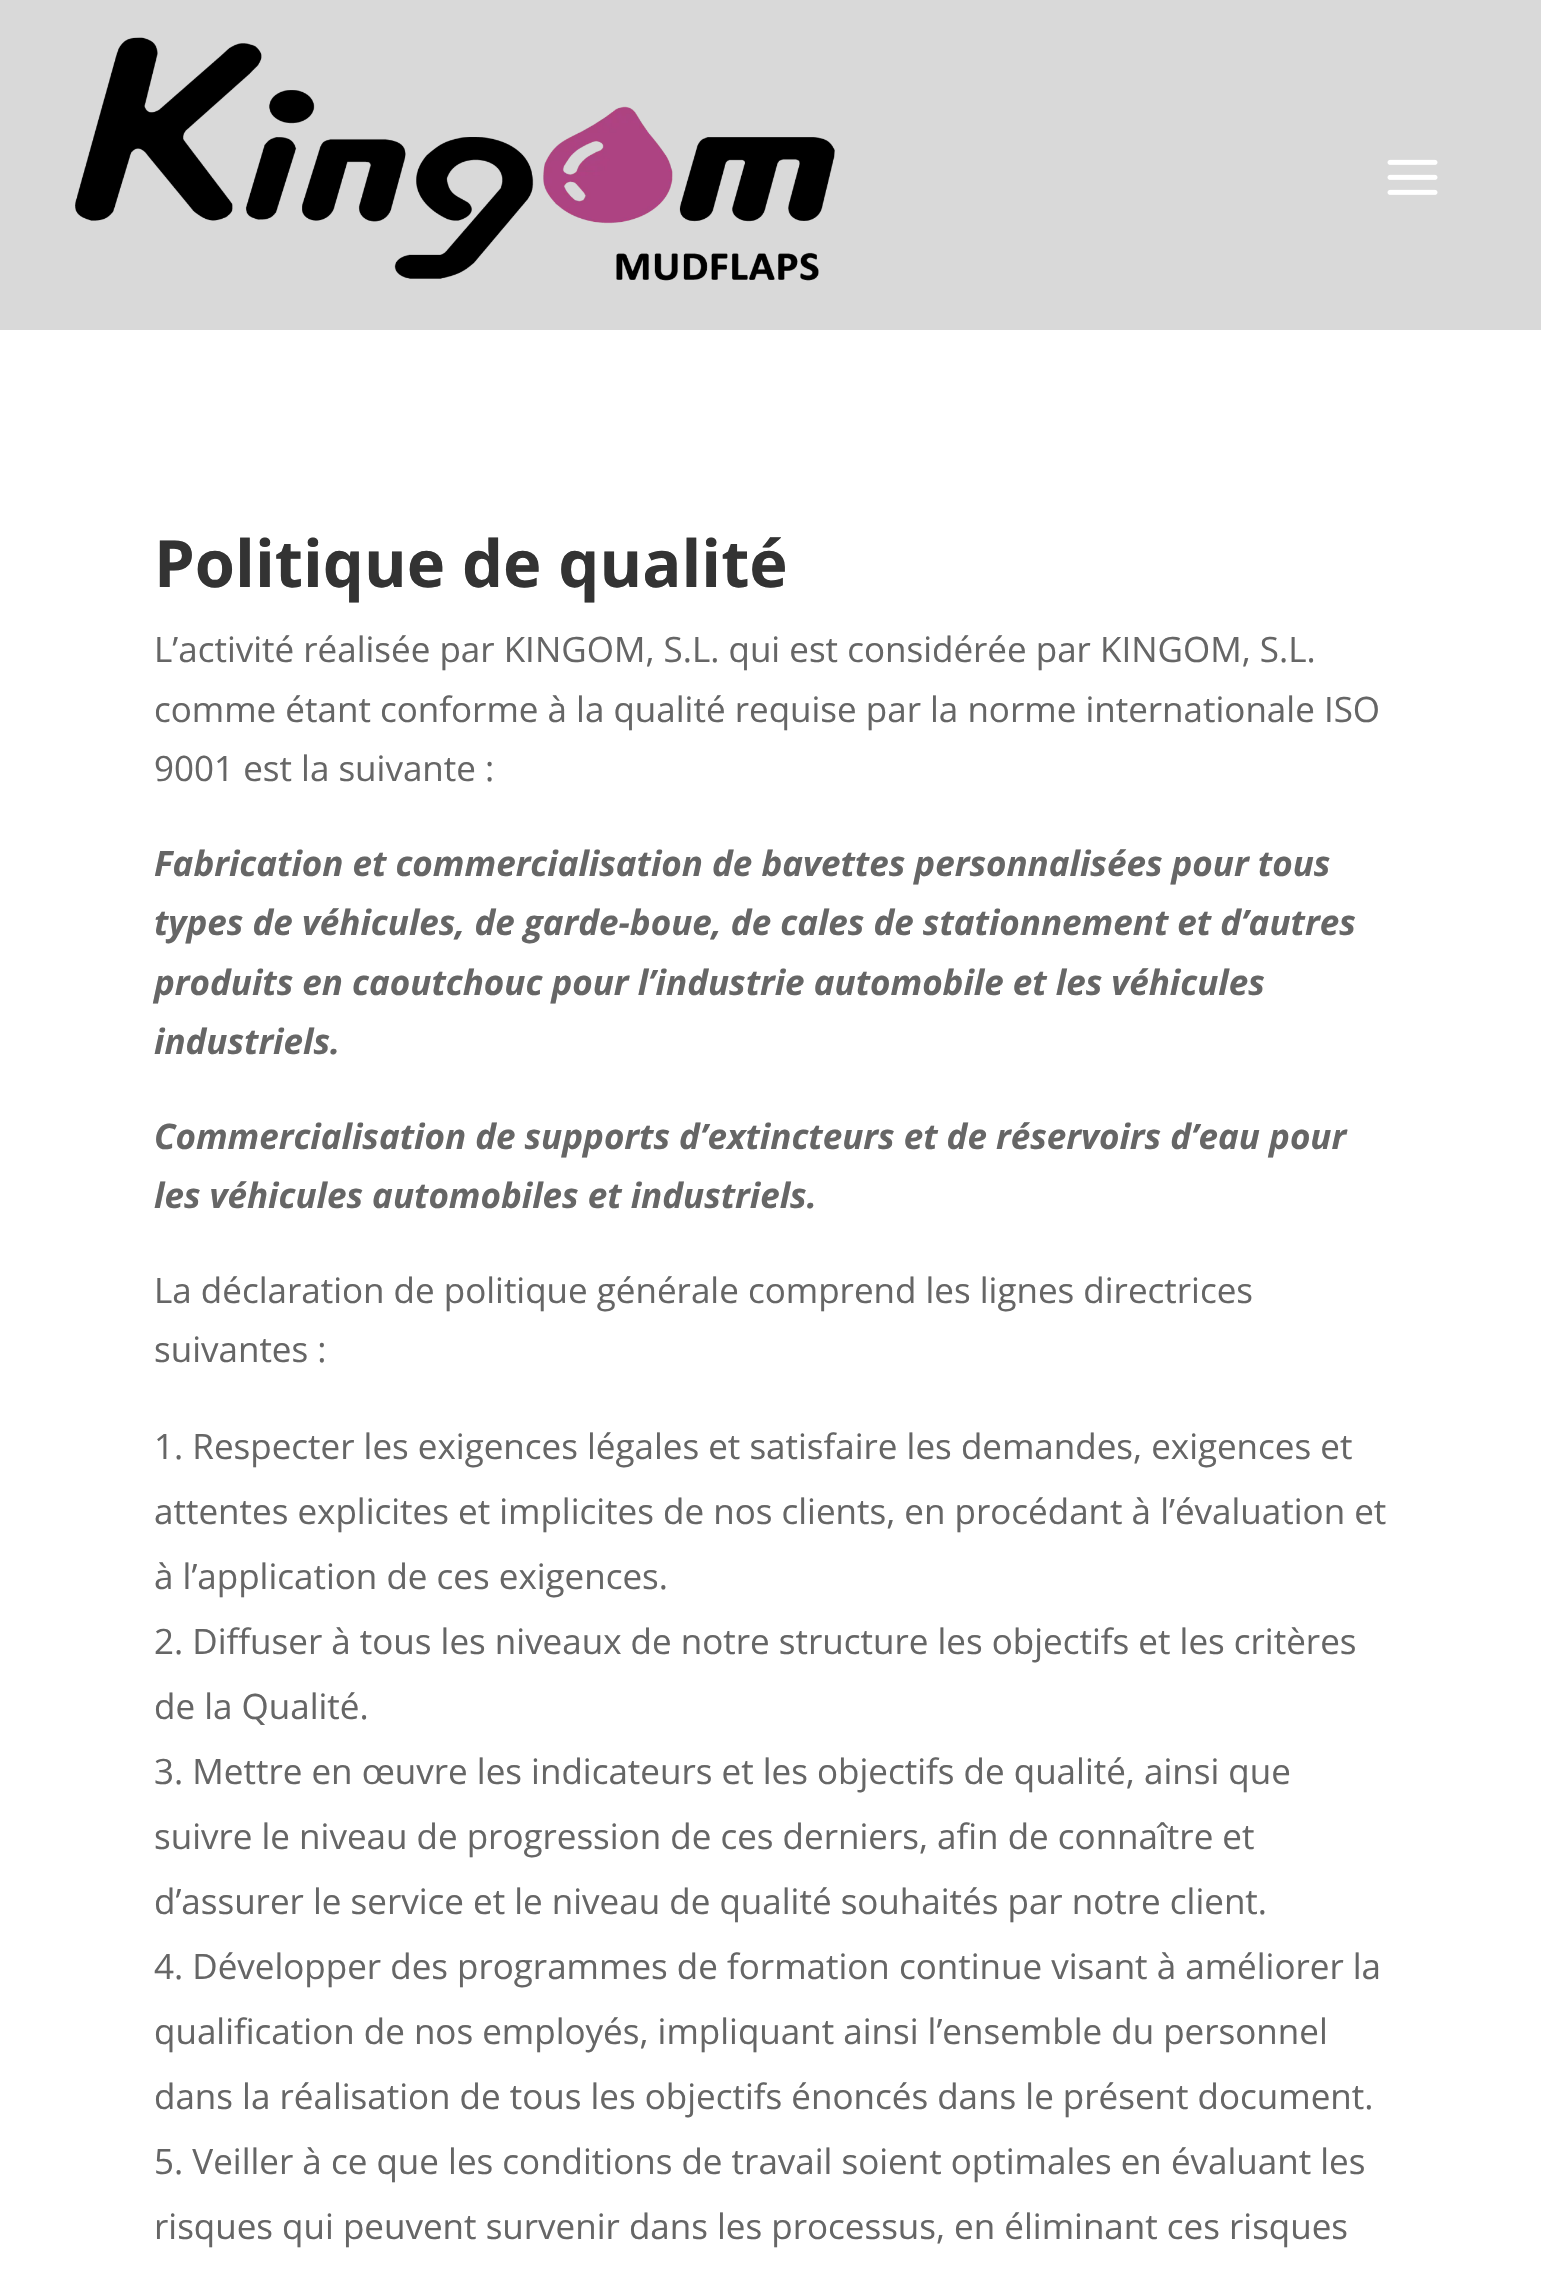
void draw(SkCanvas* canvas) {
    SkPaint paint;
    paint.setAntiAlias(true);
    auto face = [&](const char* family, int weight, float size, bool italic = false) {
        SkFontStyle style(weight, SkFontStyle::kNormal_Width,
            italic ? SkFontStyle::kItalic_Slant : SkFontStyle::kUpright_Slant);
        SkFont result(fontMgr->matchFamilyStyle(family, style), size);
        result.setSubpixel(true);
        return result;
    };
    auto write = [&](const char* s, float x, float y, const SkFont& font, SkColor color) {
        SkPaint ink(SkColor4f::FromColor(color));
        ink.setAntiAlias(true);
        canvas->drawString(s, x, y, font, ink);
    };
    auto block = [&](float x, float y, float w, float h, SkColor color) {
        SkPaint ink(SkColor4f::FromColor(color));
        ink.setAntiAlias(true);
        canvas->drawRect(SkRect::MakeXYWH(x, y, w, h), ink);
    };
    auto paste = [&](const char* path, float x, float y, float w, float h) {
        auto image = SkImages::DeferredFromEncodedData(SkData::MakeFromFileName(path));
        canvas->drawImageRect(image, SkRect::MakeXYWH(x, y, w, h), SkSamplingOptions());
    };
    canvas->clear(SK_ColorWHITE);
    block(0, 0, 1541, 330, SkColorSetRGB(217, 217, 217));
    paste("pic1.png", 75, 37, 760, 244);
    paste("pic2.png", 1387, 159, 51, 36);
    auto kFont1 = face("Open Sans", 700, 65);
    write("Politique de qualité", 154, 587, kFont1, SkColorSetRGB(51, 51, 51));
    auto kFont2 = face("Open Sans", 400, 35);
    write("L’activité réalisée par KINGOM, S.L. qui est considérée par KINGOM, S.L.", 154, 662, kFont2, SkColorSetRGB(102, 102, 102));
    write("comme étant conforme à la qualité requise par la norme internationale ISO", 154, 722, kFont2, SkColorSetRGB(102, 102, 102));
    write("9001 est la suivante :", 154, 781, kFont2, SkColorSetRGB(102, 102, 102));
    auto kFont3 = face("Open Sans", 700, 35, true);
    write("Fabrication et commercialisation de bavettes personnalisées pour tous", 154, 876, kFont3, SkColorSetRGB(102, 102, 102));
    write("types de véhicules, de garde-boue, de cales de stationnement et d’autres", 154, 935, kFont3, SkColorSetRGB(102, 102, 102));
    write("produits en caoutchouc pour l’industrie automobile et les véhicules", 154, 995, kFont3, SkColorSetRGB(102, 102, 102));
    write("industriels.", 154, 1054, kFont3, SkColorSetRGB(102, 102, 102));
    write("Commercialisation de supports d’extincteurs et de réservoirs d’eau pour", 154, 1149, kFont3, SkColorSetRGB(102, 102, 102));
    write("les véhicules automobiles et industriels.", 154, 1208, kFont3, SkColorSetRGB(102, 102, 102));
    write("La déclaration de politique générale comprend les lignes directrices", 154, 1303, kFont2, SkColorSetRGB(102, 102, 102));
    write("suivantes :", 154, 1362, kFont2, SkColorSetRGB(102, 102, 102));
    write("1. Respecter les exigences légales et satisfaire les demandes, exigences et", 154, 1459, kFont2, SkColorSetRGB(102, 102, 102));
    write("attentes explicites et implicites de nos clients, en procédant à l’évaluation et", 154, 1524, kFont2, SkColorSetRGB(102, 102, 102));
    write("à l’application de ces exigences.", 154, 1589, kFont2, SkColorSetRGB(102, 102, 102));
    write("2. Diffuser à tous les niveaux de notre structure les objectifs et les critères", 154, 1654, kFont2, SkColorSetRGB(102, 102, 102));
    write("de la Qualité.", 154, 1719, kFont2, SkColorSetRGB(102, 102, 102));
    write("3. Mettre en œuvre les indicateurs et les objectifs de qualité, ainsi que", 154, 1784, kFont2, SkColorSetRGB(102, 102, 102));
    write("suivre le niveau de progression de ces derniers, afin de connaître et", 154, 1849, kFont2, SkColorSetRGB(102, 102, 102));
    write("d’assurer le service et le niveau de qualité souhaités par notre client.", 154, 1914, kFont2, SkColorSetRGB(102, 102, 102));
    write("4. Développer des programmes de formation continue visant à améliorer la", 154, 1979, kFont2, SkColorSetRGB(102, 102, 102));
    write("qualification de nos employés, impliquant ainsi l’ensemble du personnel", 154, 2044, kFont2, SkColorSetRGB(102, 102, 102));
    write("dans la réalisation de tous les objectifs énoncés dans le présent document.", 154, 2109, kFont2, SkColorSetRGB(102, 102, 102));
    write("5. Veiller à ce que les conditions de travail soient optimales en évaluant les", 154, 2174, kFont2, SkColorSetRGB(102, 102, 102));
    write("risques qui peuvent survenir dans les processus, en éliminant ces risques", 154, 2239, kFont2, SkColorSetRGB(102, 102, 102));
}
